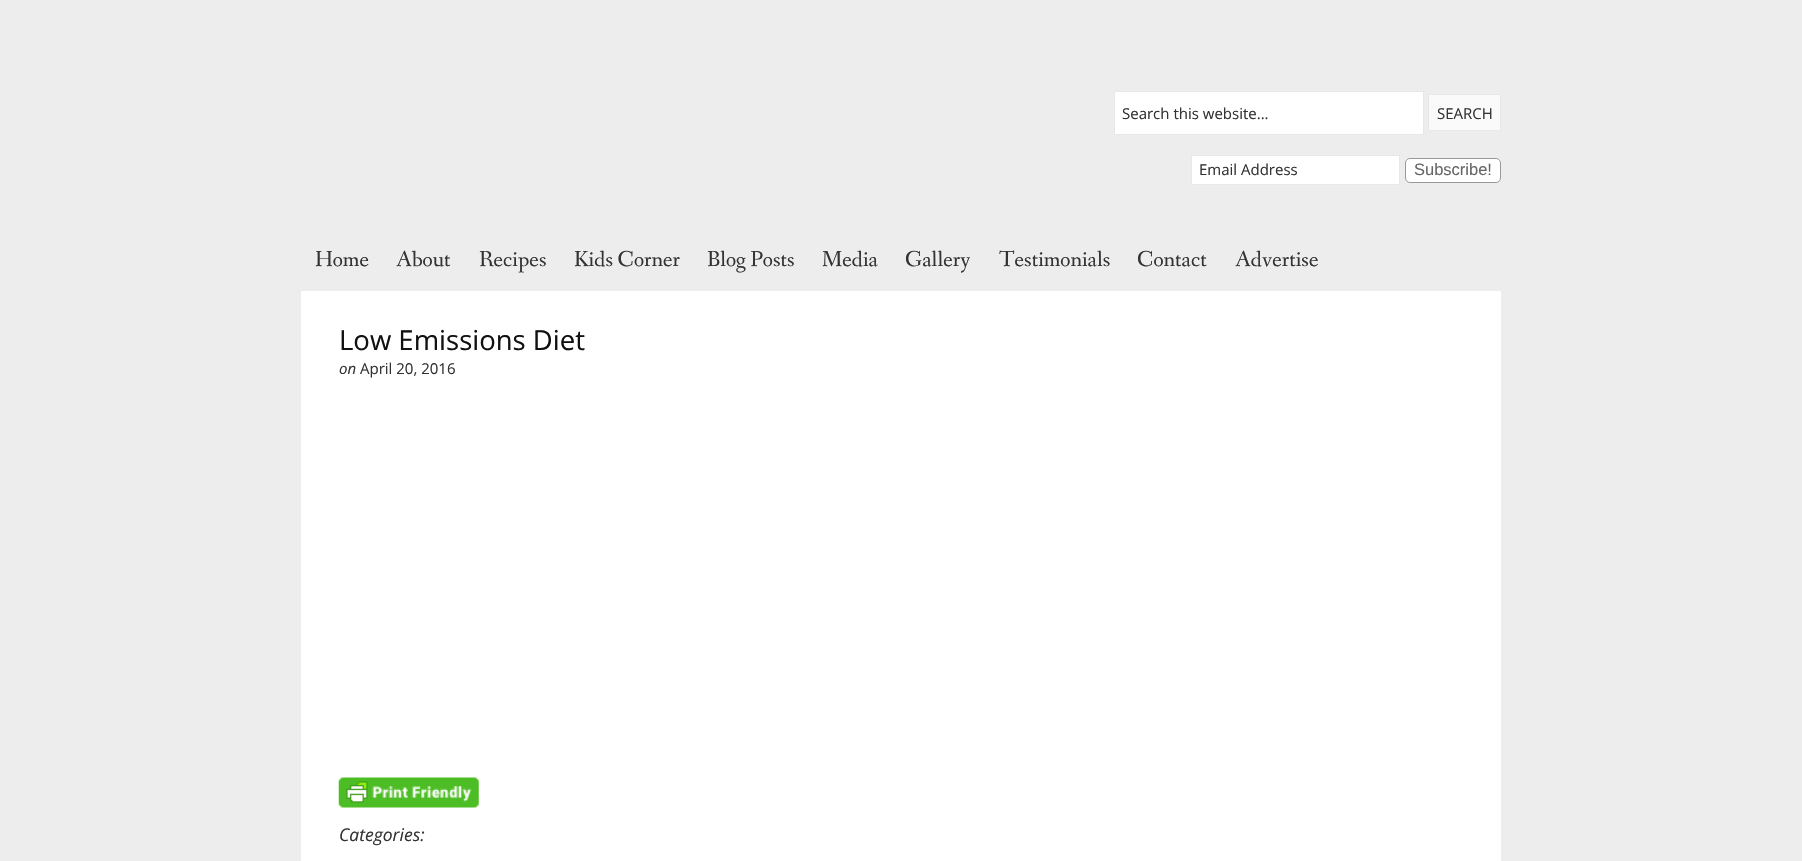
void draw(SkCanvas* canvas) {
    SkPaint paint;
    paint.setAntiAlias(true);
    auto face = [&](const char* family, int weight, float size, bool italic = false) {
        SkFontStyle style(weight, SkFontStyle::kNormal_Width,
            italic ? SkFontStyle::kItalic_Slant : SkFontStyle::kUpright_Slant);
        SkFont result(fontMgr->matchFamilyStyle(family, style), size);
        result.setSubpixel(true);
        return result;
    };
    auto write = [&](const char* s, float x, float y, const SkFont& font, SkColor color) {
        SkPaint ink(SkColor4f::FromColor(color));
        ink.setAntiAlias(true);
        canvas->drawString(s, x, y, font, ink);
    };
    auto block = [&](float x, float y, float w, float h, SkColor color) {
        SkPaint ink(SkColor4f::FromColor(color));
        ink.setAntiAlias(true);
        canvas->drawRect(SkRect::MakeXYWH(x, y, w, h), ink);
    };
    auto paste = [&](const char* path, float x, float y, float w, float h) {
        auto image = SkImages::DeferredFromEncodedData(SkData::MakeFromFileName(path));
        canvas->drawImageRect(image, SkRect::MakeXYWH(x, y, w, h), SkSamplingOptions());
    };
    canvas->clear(SkColorSetRGB(237, 237, 237));
    paint.setColor(SK_ColorWHITE);
    canvas->drawRect(SkRect::MakeXYWH(1114.5f, 91.5f, 309, 43), paint);
    paint.setStyle(SkPaint::kStroke_Style);
    paint.setStrokeWidth(1);
    paint.setColor(SkColorSetRGB(232, 232, 232));
    canvas->drawRect(SkRect::MakeXYWH(1114.5f, 91.5f, 309, 43), paint);
    auto kFont1 = face("Open Sans", 400, 15);
    write("Search this website...", 1122, 119, kFont1, SkColorSetRGB(51, 51, 51));
    paint.setStyle(SkPaint::kFill_Style);
    paint.setColor(SkColorSetRGB(250, 250, 250));
    canvas->drawRect(SkRect::MakeXYWH(1428.5f, 94.5f, 72, 36), paint);
    paint.setStyle(SkPaint::kStroke_Style);
    paint.setColor(SkColorSetRGB(232, 232, 232));
    canvas->drawRect(SkRect::MakeXYWH(1428.5f, 94.5f, 72, 36), paint);
    write("SEARCH", 1437, 119, kFont1, SkColorSetRGB(51, 51, 51));
    paint.setStyle(SkPaint::kFill_Style);
    paint.setColor(SK_ColorWHITE);
    canvas->drawRect(SkRect::MakeXYWH(1191.5f, 155.5f, 208, 29), paint);
    paint.setStyle(SkPaint::kStroke_Style);
    paint.setColor(SkColorSetRGB(232, 232, 232));
    canvas->drawRect(SkRect::MakeXYWH(1191.5f, 155.5f, 208, 29), paint);
    write("Email Address", 1199, 175, kFont1, SkColorSetRGB(51, 51, 51));
    paint.setStyle(SkPaint::kFill_Style);
    paint.setColor(SK_ColorWHITE);
    canvas->drawRoundRect(SkRect::MakeXYWH(1405.5f, 158.5f, 95, 24), 4.5f, 4.5f, paint);
    paint.setStyle(SkPaint::kStroke_Style);
    paint.setColor(SkColorSetRGB(153, 153, 153));
    canvas->drawRoundRect(SkRect::MakeXYWH(1405.5f, 158.5f, 95, 24), 4.5f, 4.5f, paint);
    auto kFont2 = face("Liberation Sans", 400, 16.5f);
    write("Subscribe!", 1414, 175, kFont2, SkColorSetRGB(102, 102, 102));
    auto kFont3 = face("Fanwood Text", 400, 22.5f);
    write("Home", 315, 266, kFont3, SkColorSetRGB(51, 51, 51));
    write("About", 396, 266, kFont3, SkColorSetRGB(51, 51, 51));
    write("Recipes", 479, 266, kFont3, SkColorSetRGB(51, 51, 51));
    write("Kids Corner", 574, 266, kFont3, SkColorSetRGB(51, 51, 51));
    write("Blog Posts", 707, 266, kFont3, SkColorSetRGB(51, 51, 51));
    write("Media", 822, 266, kFont3, SkColorSetRGB(51, 51, 51));
    write("Gallery", 905, 266, kFont3, SkColorSetRGB(51, 51, 51));
    write("Testimonials", 999, 266, kFont3, SkColorSetRGB(51, 51, 51));
    write("Contact", 1137, 266, kFont3, SkColorSetRGB(51, 51, 51));
    write("Advertise", 1235, 266, kFont3, SkColorSetRGB(51, 51, 51));
    block(301, 291, 1200, 570, SK_ColorWHITE);
    auto kFont4 = face("Open Sans", 400, 27.5f);
    write("Low Emissions Diet", 339, 350, kFont4, SkColorSetRGB(17, 17, 17));
    auto kFont5 = face("Open Sans", 400, 15, true);
    write("on", 339, 374, kFont5, SkColorSetRGB(51, 51, 51));
    write("April 20, 2016", 360, 374, kFont1, SkColorSetRGB(51, 51, 51));
    paste("pic1.png", 338, 777, 141, 31);
    auto kFont6 = face("Open Sans", 400, 17.5f, true);
    write("Categories:", 339, 841, kFont6, SkColorSetRGB(51, 51, 51));
}
